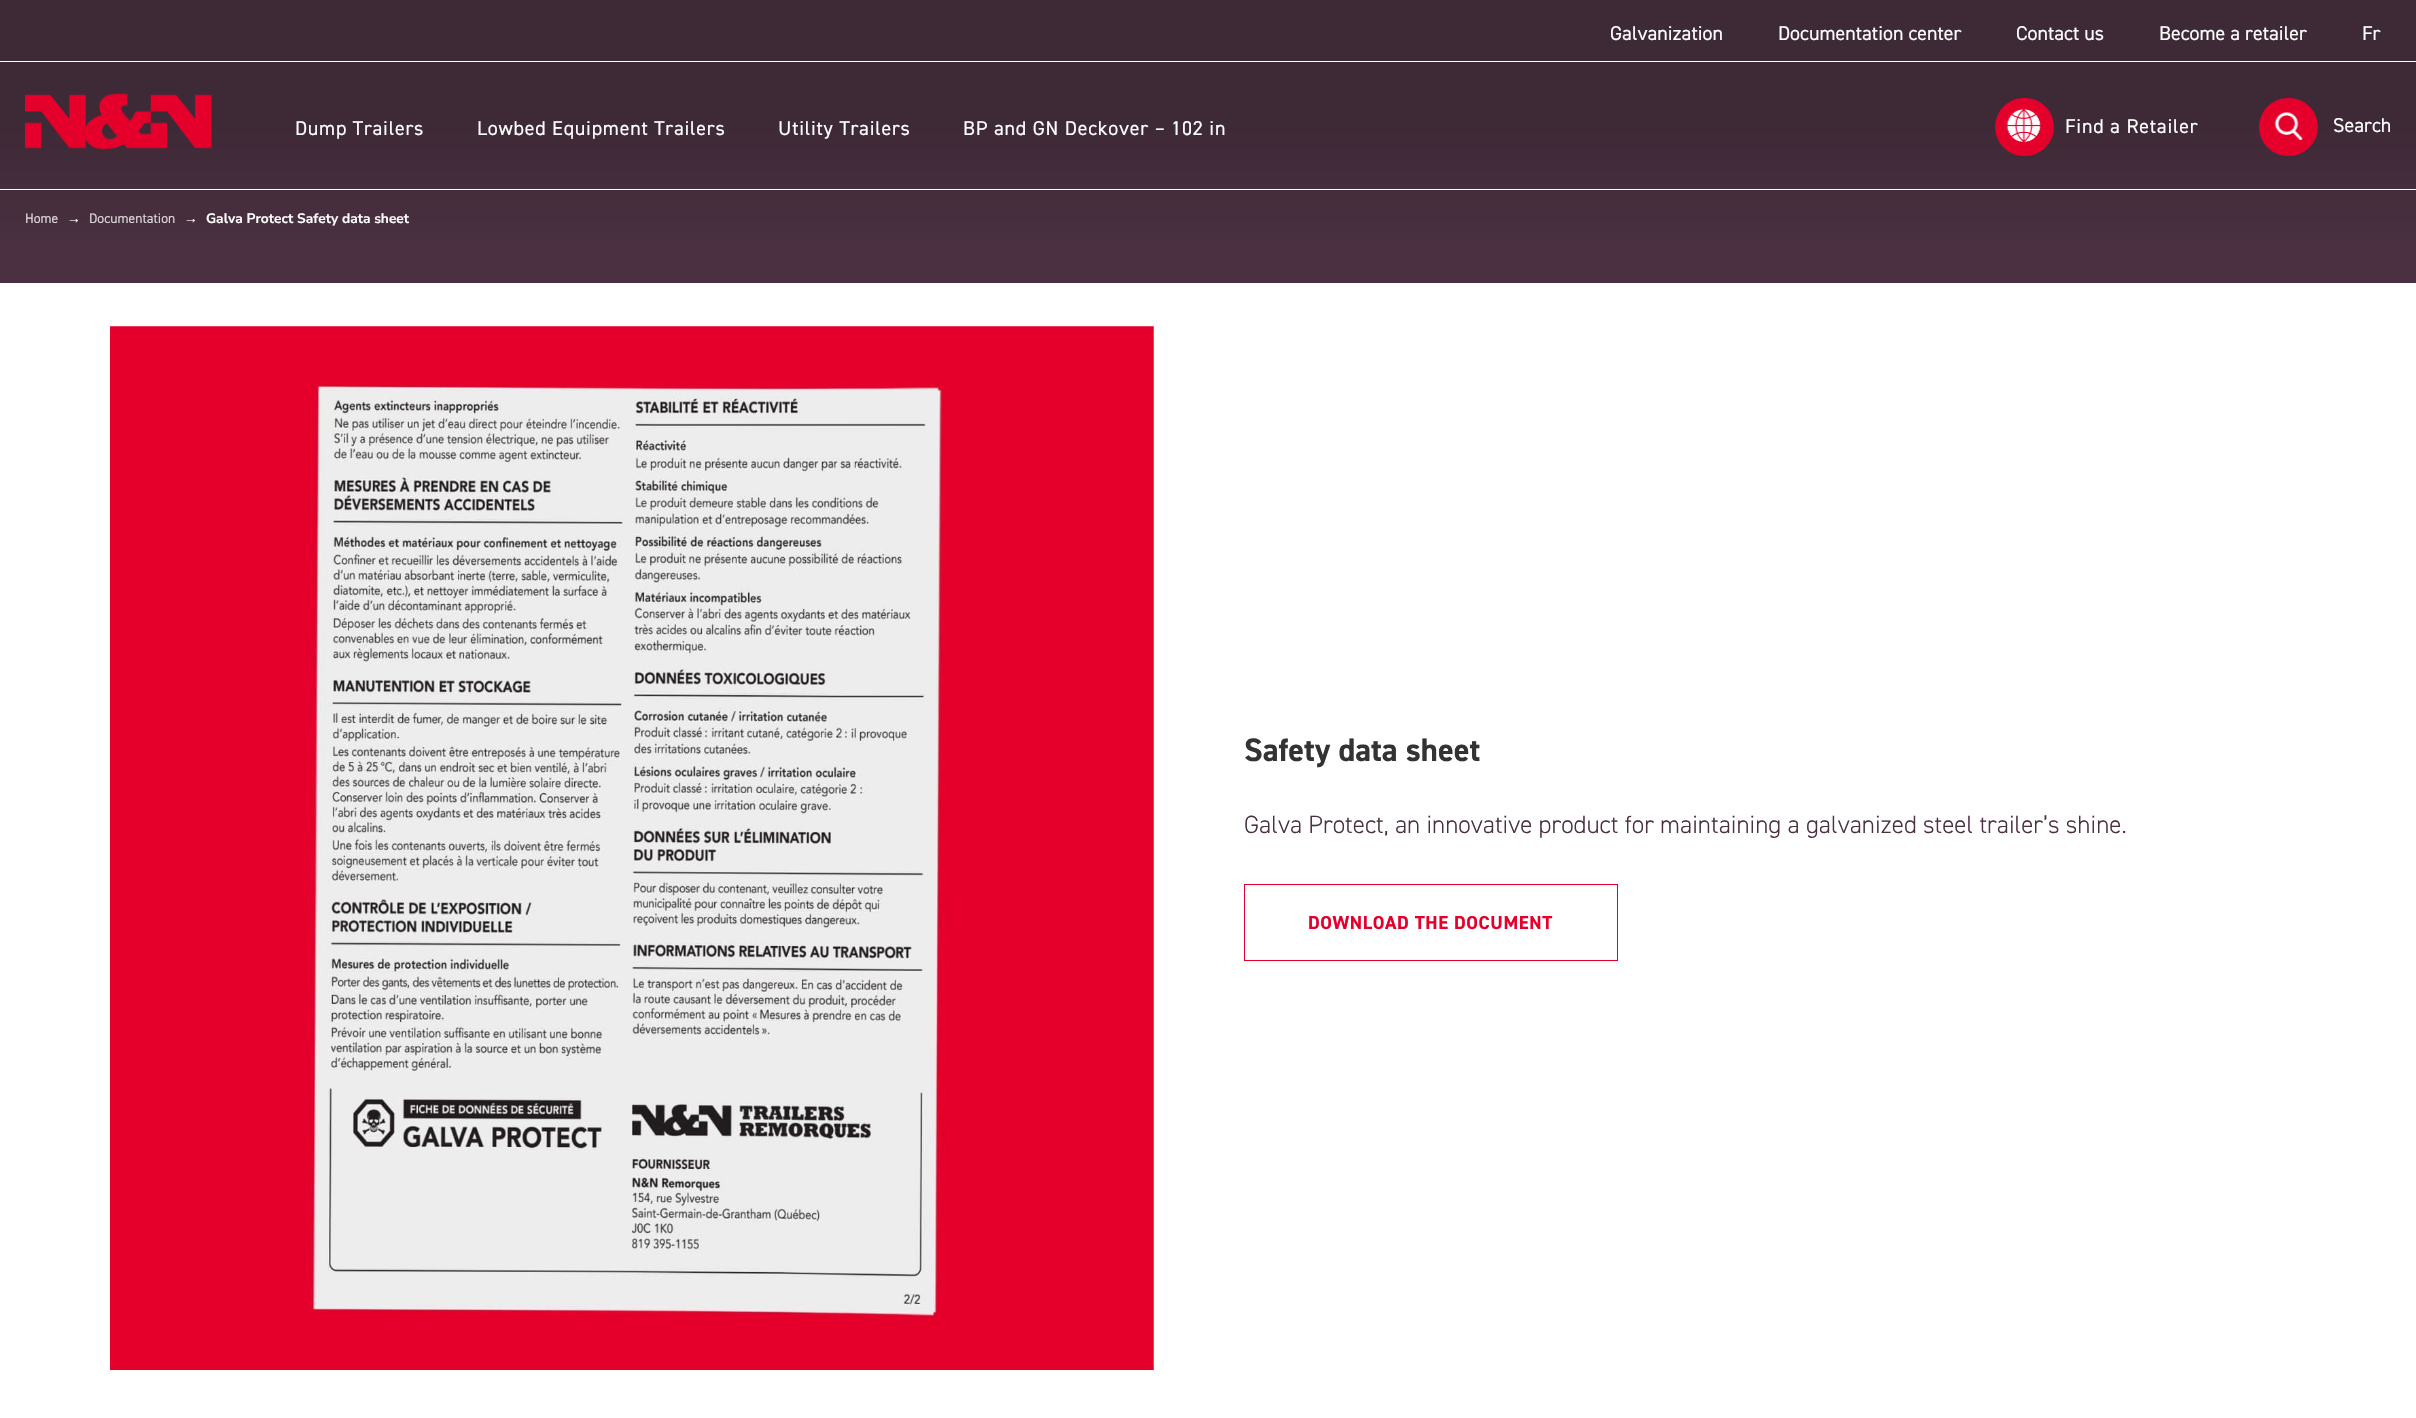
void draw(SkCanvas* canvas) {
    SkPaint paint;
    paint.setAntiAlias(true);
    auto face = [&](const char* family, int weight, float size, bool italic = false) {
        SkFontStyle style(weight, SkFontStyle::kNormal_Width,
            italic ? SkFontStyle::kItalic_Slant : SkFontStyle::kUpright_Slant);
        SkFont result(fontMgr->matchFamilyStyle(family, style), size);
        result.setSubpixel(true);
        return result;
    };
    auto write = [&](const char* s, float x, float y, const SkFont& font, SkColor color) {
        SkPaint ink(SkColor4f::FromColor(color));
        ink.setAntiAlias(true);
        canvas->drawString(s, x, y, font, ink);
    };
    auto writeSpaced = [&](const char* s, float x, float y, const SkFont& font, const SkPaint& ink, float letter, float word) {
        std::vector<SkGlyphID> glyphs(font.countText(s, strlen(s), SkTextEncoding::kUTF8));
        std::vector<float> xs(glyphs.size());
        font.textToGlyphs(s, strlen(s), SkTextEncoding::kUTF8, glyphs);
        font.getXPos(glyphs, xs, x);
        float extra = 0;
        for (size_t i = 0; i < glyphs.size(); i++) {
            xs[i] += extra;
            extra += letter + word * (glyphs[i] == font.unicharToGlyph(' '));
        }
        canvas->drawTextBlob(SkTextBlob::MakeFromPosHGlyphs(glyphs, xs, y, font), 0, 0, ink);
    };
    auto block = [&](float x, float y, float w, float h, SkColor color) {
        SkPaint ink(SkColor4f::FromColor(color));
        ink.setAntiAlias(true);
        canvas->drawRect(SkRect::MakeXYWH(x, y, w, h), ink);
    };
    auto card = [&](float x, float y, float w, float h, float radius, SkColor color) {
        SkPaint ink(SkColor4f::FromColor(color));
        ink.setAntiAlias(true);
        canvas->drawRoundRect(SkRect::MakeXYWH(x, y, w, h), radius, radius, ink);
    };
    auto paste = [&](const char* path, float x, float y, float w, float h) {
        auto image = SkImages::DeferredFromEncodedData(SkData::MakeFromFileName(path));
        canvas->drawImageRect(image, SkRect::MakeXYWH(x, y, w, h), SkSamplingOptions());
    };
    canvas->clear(SK_ColorWHITE);
    {
        const SkColor colors[] = {SkColorSetRGB(74, 48, 64), SkColorSetRGB(62, 41, 55)};
        const float stops[] = {0, 0.5f};
        const SkPoint ends[] = {{1208, 246}, {1208, 0}};
        paint.setShader(SkGradientShader::MakeLinear(ends, colors, stops, 2, SkTileMode::kClamp));
        paint.setAlpha(255);
    }
    canvas->drawRect(SkRect::MakeXYWH(0, 0, 2416, 246), paint);
    block(0, 61, 2416, 1, SK_ColorWHITE);
    auto kFont1 = face("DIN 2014", 400, 20);
    write("Galvanization", 1610, 40, kFont1, SK_ColorWHITE);
    write("Documentation center", 1778, 40, kFont1, SK_ColorWHITE);
    write("Contact us", 2016, 40, kFont1, SK_ColorWHITE);
    write("Become a retailer", 2159, 40, kFont1, SK_ColorWHITE);
    write("Fr", 2362, 40, kFont1, SK_ColorWHITE);
    block(0, 189, 2416, 1, SK_ColorWHITE);
    paste("pic1.png", 25, 93, 187, 57);
    paint.setShader(nullptr);
    paint.setColor(SK_ColorWHITE);
    writeSpaced("Dump Trailers", 295, 135, kFont1, paint, 0.75f, 0);
    writeSpaced("Lowbed Equipment Trailers", 477, 135, kFont1, paint, 0.75f, 0);
    writeSpaced("Utility Trailers", 778, 135, kFont1, paint, 0.75f, 0);
    writeSpaced("BP and GN Deckover – 102 in", 963, 135, kFont1, paint, 0.75f, 0);
    card(1995, 98, 59, 58, 29, SkColorSetRGB(228, 0, 43));
    paste("pic2.png", 2006, 109, 35, 33);
    writeSpaced("Find a Retailer", 2065, 133, kFont1, paint, 0.75f, 0);
    card(2259, 98, 59, 58, 29, SkColorSetRGB(228, 0, 43));
    paste("pic3.png", 2274, 112, 29, 28);
    write("Search", 2333, 132, kFont1, SK_ColorWHITE);
    auto kFont2 = face("DIN 2014", 400, 13.75f);
    write("Home", 25, 223, kFont2, SkColorSetRGB(218, 213, 216));
    auto kFont3 = face("Liberation Sans", 400, 13.75f);
    write("→", 67, 223, kFont3, SK_ColorWHITE);
    write("Documentation", 89, 223, kFont2, SkColorSetRGB(218, 213, 216));
    write("→", 184, 223, kFont3, SK_ColorWHITE);
    auto kFont4 = face("Nunito Sans", 700, 13.75f);
    write("Galva Protect Safety data sheet", 206, 223, kFont4, SK_ColorWHITE);
    block(0, 246, 2416, 37, SkColorSetRGB(74, 48, 65));
    paste("pic4.png", 110, 326, 1044, 1044);
    auto kFont5 = face("DIN 2014", 700, 32.5f);
    write("Safety data sheet", 1244, 761, kFont5, SkColorSetRGB(51, 51, 51));
    auto kFont6 = face("DIN 2014", 300, 25);
    write("Galva Protect, an innovative product for maintaining a galvanized steel trailer’s shine.", 1244, 833, kFont6, SkColorSetRGB(74, 48, 65));
    paint.setStyle(SkPaint::kStroke_Style);
    paint.setStrokeWidth(1);
    paint.setColor(SkColorSetRGB(228, 0, 43));
    canvas->drawRect(SkRect::MakeXYWH(1244.5f, 884.5f, 373, 76), paint);
    auto kFont7 = face("DIN 2014", 700, 18.75f);
    paint.setStyle(SkPaint::kFill_Style);
    writeSpaced("DOWNLOAD THE DOCUMENT", 1308, 929, kFont7, paint, 0.6f, 0);
}
